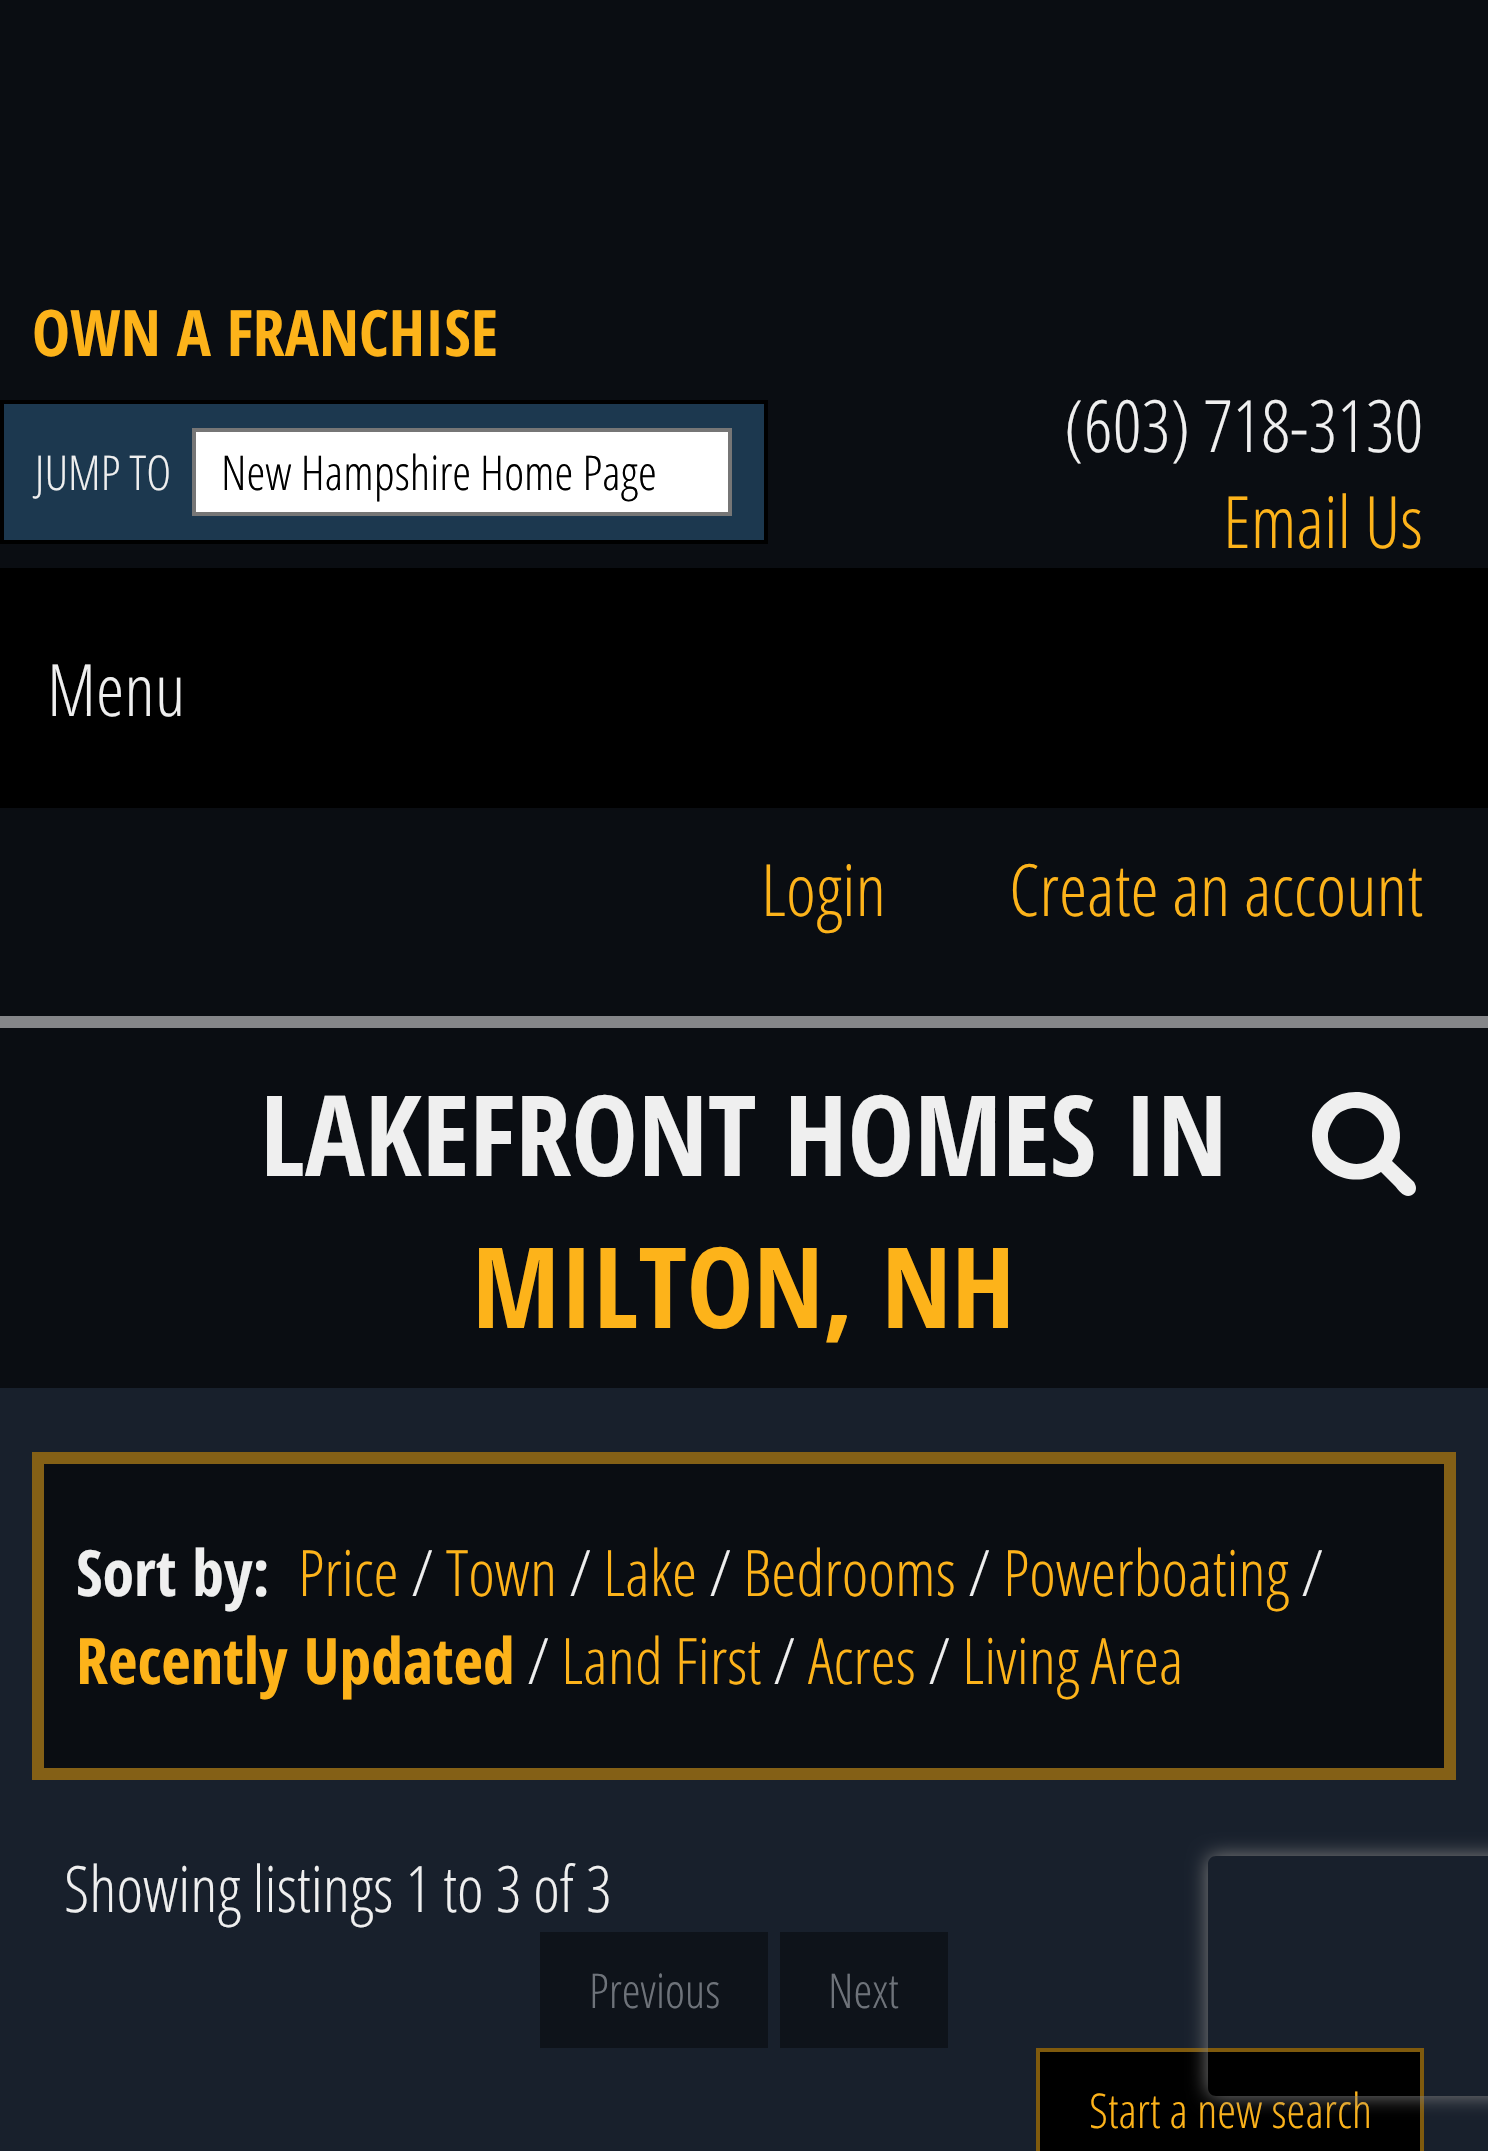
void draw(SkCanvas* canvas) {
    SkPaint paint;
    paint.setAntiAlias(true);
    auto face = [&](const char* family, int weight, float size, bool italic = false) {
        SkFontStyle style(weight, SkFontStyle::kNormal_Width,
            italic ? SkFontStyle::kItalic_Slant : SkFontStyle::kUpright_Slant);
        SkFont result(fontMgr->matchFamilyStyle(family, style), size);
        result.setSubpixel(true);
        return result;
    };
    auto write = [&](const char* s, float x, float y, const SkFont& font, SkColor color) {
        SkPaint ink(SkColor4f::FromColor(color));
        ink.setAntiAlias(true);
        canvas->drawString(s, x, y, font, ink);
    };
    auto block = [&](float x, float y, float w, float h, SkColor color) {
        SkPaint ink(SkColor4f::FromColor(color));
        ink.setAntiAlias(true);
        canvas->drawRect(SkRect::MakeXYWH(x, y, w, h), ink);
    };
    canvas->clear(SkColorSetRGB(24, 32, 44));
    block(0, 0, 1488, 1388, SkColorSetRGB(10, 13, 18));
    auto kFont1 = face("Open Sans Condensed", 700, 64);
    write("OWN A FRANCHISE", 32, 356, kFont1, SkColorSetRGB(253, 179, 26));
    paint.setColor(SkColorSetRGB(28, 56, 79));
    canvas->drawRect(SkRect::MakeXYWH(2, 402, 764, 140), paint);
    paint.setStyle(SkPaint::kStroke_Style);
    paint.setStrokeWidth(4);
    paint.setColor(SK_ColorBLACK);
    canvas->drawRect(SkRect::MakeXYWH(2, 402, 764, 140), paint);
    auto kFont2 = face("Open Sans Condensed", 300, 48);
    write("JUMP TO", 35, 490, kFont2, SkColorSetRGB(239, 239, 239));
    paint.setStyle(SkPaint::kFill_Style);
    paint.setColor(SK_ColorWHITE);
    canvas->drawRect(SkRect::MakeXYWH(194, 430, 536, 84), paint);
    paint.setStyle(SkPaint::kStroke_Style);
    paint.setColor(SkColorSetRGB(118, 118, 118));
    canvas->drawRect(SkRect::MakeXYWH(194, 430, 536, 84), paint);
    write("New Hampshire Home Page", 221, 490, kFont2, SK_ColorBLACK);
    auto kFont3 = face("Open Sans Condensed", 300, 72);
    write("(603) 718-3130", 1064, 452, kFont3, SkColorSetRGB(239, 239, 239));
    write("Email Us", 1223, 548, kFont3, SkColorSetRGB(253, 179, 26));
    block(0, 568, 1488, 240, SK_ColorBLACK);
    write("Menu", 47, 716, kFont3, SkColorSetRGB(239, 239, 239));
    write("Login", 761, 916, kFont3, SkColorSetRGB(253, 179, 26));
    write("Create an account", 1009, 916, kFont3, SkColorSetRGB(253, 179, 26));
    block(0, 1016, 1488, 12, SkColorSetRGB(133, 134, 137));
    auto kFont4 = face("Open Sans Condensed", 700, 112);
    write("LAKEFRONT HOMES IN", 260, 1176, kFont4, SkColorSetRGB(239, 239, 239));
    write("MILTON, NH", 472, 1328, kFont4, SkColorSetRGB(253, 179, 26));
    paint.setStyle(SkPaint::kFill_Style);
    paint.setColor(SkColorSetRGB(239, 239, 239));
    canvas->drawPath(SkPathBuilder().moveTo(1376, 1156).cubicTo(1380, 1151, 1383, 1145, 1384, 1139).cubicTo(1386, 1113, 1355, 1098, 1336, 1116).cubicTo(1332, 1121, 1329, 1127, 1328, 1133).cubicTo(1326, 1159, 1357, 1174, 1376, 1156).close().moveTo(1416, 1188).cubicTo(1416, 1191, 1415, 1193, 1412, 1195).cubicTo(1405, 1199, 1399, 1191, 1395, 1186).lineTo(1381, 1172).cubicTo(1359, 1187, 1328, 1179, 1316, 1155).cubicTo(1312, 1146, 1311, 1135, 1313, 1125).cubicTo(1324, 1082, 1385, 1081, 1398, 1123).cubicTo(1402, 1136, 1400, 1150, 1392, 1161).lineTo(1414, 1182).cubicTo(1415, 1184, 1416, 1186, 1416, 1188).close().detach(), paint);
    paint.setColor(SkColorSetRGB(10, 13, 18));
    canvas->drawRect(SkRect::MakeXYWH(38, 1458, 1412, 316), paint);
    paint.setStyle(SkPaint::kStroke_Style);
    paint.setStrokeWidth(12);
    paint.setColor(SkColorSetRGB(132, 96, 22));
    canvas->drawRect(SkRect::MakeXYWH(38, 1458, 1412, 316), paint);
    write("Sort by:", 76, 1596, kFont1, SkColorSetRGB(239, 239, 239));
    auto kFont5 = face("Open Sans Condensed", 300, 64);
    write("Price", 298, 1596, kFont5, SkColorSetRGB(253, 179, 26));
    write("/", 411, 1596, kFont5, SkColorSetRGB(239, 239, 239));
    write("Town", 446, 1596, kFont5, SkColorSetRGB(253, 179, 26));
    write("/", 569, 1596, kFont5, SkColorSetRGB(239, 239, 239));
    write("Lake", 603, 1596, kFont5, SkColorSetRGB(253, 179, 26));
    write("/", 709, 1596, kFont5, SkColorSetRGB(239, 239, 239));
    write("Bedrooms", 743, 1596, kFont5, SkColorSetRGB(253, 179, 26));
    write("/", 968, 1596, kFont5, SkColorSetRGB(239, 239, 239));
    write("Powerboating", 1003, 1596, kFont5, SkColorSetRGB(253, 179, 26));
    write("/", 1301, 1596, kFont5, SkColorSetRGB(239, 239, 239));
    write("Recently Updated", 76, 1684, kFont1, SkColorSetRGB(253, 179, 26));
    write("/", 527, 1684, kFont5, SkColorSetRGB(239, 239, 239));
    write("Land First", 561, 1684, kFont5, SkColorSetRGB(253, 179, 26));
    write("/", 773, 1684, kFont5, SkColorSetRGB(239, 239, 239));
    write("Acres", 808, 1684, kFont5, SkColorSetRGB(253, 179, 26));
    write("/", 928, 1684, kFont5, SkColorSetRGB(239, 239, 239));
    write("Living Area", 962, 1684, kFont5, SkColorSetRGB(253, 179, 26));
    write("Showing listings 1 to 3 of 3", 64, 1912, kFont5, SkColorSetRGB(239, 239, 239));
    block(540, 1932, 228, 116, SkColorSetRGB(14, 19, 26));
    write("Previous", 589, 2008, kFont2, SkColorSetRGB(110, 115, 122));
    block(780, 1932, 168, 116, SkColorSetRGB(14, 19, 26));
    write("Next", 828, 2008, kFont2, SkColorSetRGB(110, 115, 122));
    paint.setStyle(SkPaint::kFill_Style);
    paint.setColor(SK_ColorBLACK);
    canvas->drawRect(SkRect::MakeXYWH(1038, 2050, 384, 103), paint);
    paint.setStyle(SkPaint::kStroke_Style);
    paint.setStrokeWidth(4);
    paint.setColor(SkColorSetRGB(127, 90, 13));
    canvas->drawRect(SkRect::MakeXYWH(1038, 2050, 384, 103), paint);
    write("Start a new search", 1089, 2128, kFont2, SkColorSetRGB(253, 179, 26));
    canvas->save();
    canvas->clipPath(SkPathBuilder(SkPathFillType::kEvenOdd).moveTo(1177, 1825).lineTo(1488, 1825).lineTo(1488, 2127).lineTo(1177, 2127).close().moveTo(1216, 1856).lineTo(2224, 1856).cubicTo(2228.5f, 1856, 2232, 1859.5f, 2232, 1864).lineTo(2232, 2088).cubicTo(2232, 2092.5f, 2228.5f, 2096, 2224, 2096).lineTo(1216, 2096).cubicTo(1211.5f, 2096, 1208, 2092.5f, 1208, 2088).lineTo(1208, 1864).cubicTo(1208, 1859.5f, 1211.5f, 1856, 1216, 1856).close().detach(), true);
    paint.setStyle(SkPaint::kFill_Style);
    paint.setColor(SkColorSetRGB(128, 128, 128));
    paint.setMaskFilter(SkMaskFilter::MakeBlur(kNormal_SkBlurStyle, 10));
    canvas->drawRoundRect(SkRect::MakeXYWH(1208, 1856, 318, 240), 8, 8, paint);
    paint.setMaskFilter(nullptr);
    canvas->restore();
}
